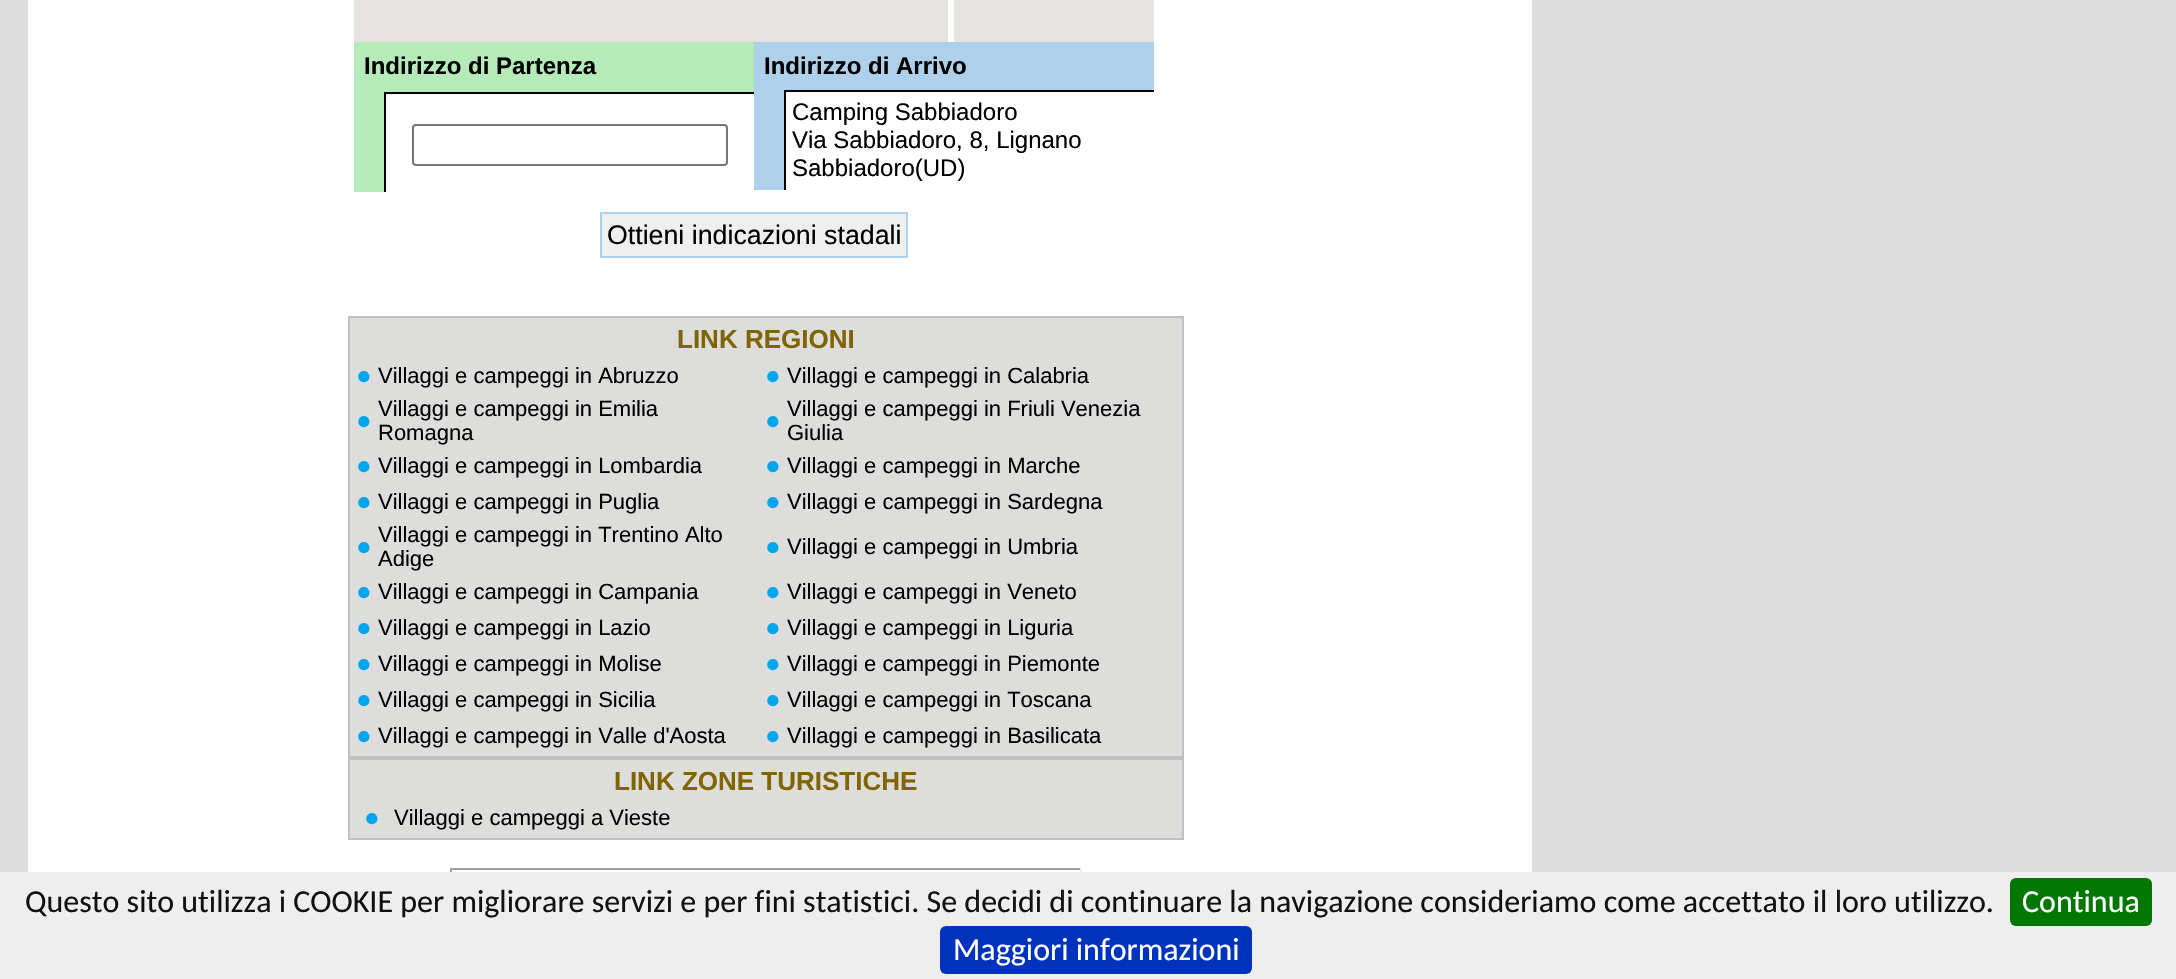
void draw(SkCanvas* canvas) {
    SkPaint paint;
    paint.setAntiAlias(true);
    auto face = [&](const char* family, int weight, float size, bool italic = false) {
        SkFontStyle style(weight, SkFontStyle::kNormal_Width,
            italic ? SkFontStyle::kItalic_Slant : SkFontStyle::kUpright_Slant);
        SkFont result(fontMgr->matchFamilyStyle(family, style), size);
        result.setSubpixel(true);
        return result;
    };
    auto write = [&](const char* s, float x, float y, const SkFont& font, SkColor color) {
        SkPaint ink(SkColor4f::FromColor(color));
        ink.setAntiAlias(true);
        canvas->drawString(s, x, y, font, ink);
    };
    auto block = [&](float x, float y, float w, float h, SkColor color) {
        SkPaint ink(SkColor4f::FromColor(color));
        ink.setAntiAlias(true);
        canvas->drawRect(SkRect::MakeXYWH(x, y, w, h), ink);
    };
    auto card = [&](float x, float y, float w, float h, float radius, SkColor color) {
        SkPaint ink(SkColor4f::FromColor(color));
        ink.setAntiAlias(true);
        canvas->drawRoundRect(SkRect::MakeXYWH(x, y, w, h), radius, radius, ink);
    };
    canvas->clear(SkColorSetRGB(221, 221, 221));
    block(28, 0, 1504, 872, SK_ColorWHITE);
    block(354, 0, 800, 42, SkColorSetRGB(229, 227, 223));
    block(948, 0, 6, 42, SK_ColorWHITE);
    block(354, 42, 400, 50, SkColorSetRGB(181, 234, 185));
    auto kFont1 = face("Liberation Sans", 700, 24);
    write("Indirizzo di Partenza", 364, 74, kFont1, SK_ColorBLACK);
    block(354, 92, 30, 100, SkColorSetRGB(181, 234, 185));
    block(384, 92, 370, 2, SK_ColorBLACK);
    block(384, 92, 2, 100, SK_ColorBLACK);
    paint.setStyle(SkPaint::kStroke_Style);
    paint.setStrokeWidth(2);
    paint.setColor(SkColorSetRGB(118, 118, 118));
    canvas->drawRoundRect(SkRect::MakeXYWH(413, 125, 314, 40), 3, 3, paint);
    block(754, 42, 400, 48, SkColorSetRGB(174, 208, 234));
    write("Indirizzo di Arrivo", 764, 74, kFont1, SK_ColorBLACK);
    block(754, 90, 30, 100, SkColorSetRGB(174, 208, 234));
    block(784, 90, 370, 2, SK_ColorBLACK);
    block(784, 90, 2, 100, SK_ColorBLACK);
    auto kFont2 = face("Liberation Sans", 400, 24);
    write("Camping Sabbiadoro", 792, 120, kFont2, SK_ColorBLACK);
    write("Via Sabbiadoro, 8, Lignano", 792, 148, kFont2, SK_ColorBLACK);
    write("Sabbiadoro(UD)", 792, 176, kFont2, SK_ColorBLACK);
    paint.setStyle(SkPaint::kFill_Style);
    paint.setColor(SkColorSetRGB(239, 239, 239));
    canvas->drawRect(SkRect::MakeXYWH(601, 213, 306, 44), paint);
    paint.setStyle(SkPaint::kStroke_Style);
    paint.setColor(SkColorSetRGB(174, 208, 234));
    canvas->drawRect(SkRect::MakeXYWH(601, 213, 306, 44), paint);
    auto kFont3 = face("Liberation Sans", 400, 26.75f);
    write("Ottieni indicazioni stadali", 607, 244, kFont3, SK_ColorBLACK);
    paint.setStyle(SkPaint::kFill_Style);
    paint.setColor(SkColorSetRGB(221, 221, 220));
    canvas->drawRect(SkRect::MakeXYWH(349, 317, 834, 440), paint);
    paint.setStyle(SkPaint::kStroke_Style);
    paint.setColor(SkColorSetRGB(192, 192, 192));
    canvas->drawRect(SkRect::MakeXYWH(349, 317, 834, 440), paint);
    auto kFont4 = face("Liberation Sans", 700, 26);
    write("LINK REGIONI", 677, 348, kFont4, SkColorSetRGB(128, 100, 0));
    write("●", 356, 384, kFont4, SkColorSetRGB(0, 166, 235));
    auto kFont5 = face("Liberation Sans", 400, 22);
    write("Villaggi e campeggi in Abruzzo", 378, 383, kFont5, SK_ColorBLACK);
    write("●", 765, 384, kFont4, SkColorSetRGB(0, 166, 235));
    write("Villaggi e campeggi in Calabria", 787, 383, kFont5, SK_ColorBLACK);
    write("●", 356, 429, kFont4, SkColorSetRGB(0, 166, 235));
    write("Villaggi e campeggi in Emilia", 378, 416, kFont5, SK_ColorBLACK);
    write("Romagna", 378, 440, kFont5, SK_ColorBLACK);
    write("●", 765, 429, kFont4, SkColorSetRGB(0, 166, 235));
    write("Villaggi e campeggi in Friuli Venezia", 787, 416, kFont5, SK_ColorBLACK);
    write("Giulia", 787, 440, kFont5, SK_ColorBLACK);
    write("●", 356, 474, kFont4, SkColorSetRGB(0, 166, 235));
    write("Villaggi e campeggi in Lombardia", 378, 473, kFont5, SK_ColorBLACK);
    write("●", 765, 474, kFont4, SkColorSetRGB(0, 166, 235));
    write("Villaggi e campeggi in Marche", 787, 473, kFont5, SK_ColorBLACK);
    write("●", 356, 510, kFont4, SkColorSetRGB(0, 166, 235));
    write("Villaggi e campeggi in Puglia", 378, 509, kFont5, SK_ColorBLACK);
    write("●", 765, 510, kFont4, SkColorSetRGB(0, 166, 235));
    write("Villaggi e campeggi in Sardegna", 787, 509, kFont5, SK_ColorBLACK);
    write("●", 356, 555, kFont4, SkColorSetRGB(0, 166, 235));
    write("Villaggi e campeggi in Trentino Alto", 378, 542, kFont5, SK_ColorBLACK);
    write("Adige", 378, 566, kFont5, SK_ColorBLACK);
    write("●", 765, 555, kFont4, SkColorSetRGB(0, 166, 235));
    write("Villaggi e campeggi in Umbria", 787, 554, kFont5, SK_ColorBLACK);
    write("●", 356, 600, kFont4, SkColorSetRGB(0, 166, 235));
    write("Villaggi e campeggi in Campania", 378, 599, kFont5, SK_ColorBLACK);
    write("●", 765, 600, kFont4, SkColorSetRGB(0, 166, 235));
    write("Villaggi e campeggi in Veneto", 787, 599, kFont5, SK_ColorBLACK);
    write("●", 356, 636, kFont4, SkColorSetRGB(0, 166, 235));
    write("Villaggi e campeggi in Lazio", 378, 635, kFont5, SK_ColorBLACK);
    write("●", 765, 636, kFont4, SkColorSetRGB(0, 166, 235));
    write("Villaggi e campeggi in Liguria", 787, 635, kFont5, SK_ColorBLACK);
    write("●", 356, 672, kFont4, SkColorSetRGB(0, 166, 235));
    write("Villaggi e campeggi in Molise", 378, 671, kFont5, SK_ColorBLACK);
    write("●", 765, 672, kFont4, SkColorSetRGB(0, 166, 235));
    write("Villaggi e campeggi in Piemonte", 787, 671, kFont5, SK_ColorBLACK);
    write("●", 356, 708, kFont4, SkColorSetRGB(0, 166, 235));
    write("Villaggi e campeggi in Sicilia", 378, 707, kFont5, SK_ColorBLACK);
    write("●", 765, 708, kFont4, SkColorSetRGB(0, 166, 235));
    write("Villaggi e campeggi in Toscana", 787, 707, kFont5, SK_ColorBLACK);
    write("●", 356, 744, kFont4, SkColorSetRGB(0, 166, 235));
    write("Villaggi e campeggi in Valle d'Aosta", 378, 743, kFont5, SK_ColorBLACK);
    write("●", 765, 744, kFont4, SkColorSetRGB(0, 166, 235));
    write("Villaggi e campeggi in Basilicata", 787, 743, kFont5, SK_ColorBLACK);
    paint.setStyle(SkPaint::kFill_Style);
    paint.setColor(SkColorSetRGB(221, 221, 220));
    canvas->drawRect(SkRect::MakeXYWH(349, 759, 834, 80), paint);
    paint.setStyle(SkPaint::kStroke_Style);
    paint.setColor(SkColorSetRGB(192, 192, 192));
    canvas->drawRect(SkRect::MakeXYWH(349, 759, 834, 80), paint);
    write("LINK ZONE TURISTICHE", 614, 790, kFont4, SkColorSetRGB(128, 100, 0));
    write("●", 364, 826, kFont4, SkColorSetRGB(0, 166, 235));
    write("Villaggi e campeggi a Vieste", 394, 825, kFont5, SK_ColorBLACK);
    block(450, 868, 632, 2, SkColorSetRGB(159, 159, 159));
    block(1080, 868, 2, 6, SkColorSetRGB(238, 238, 238));
    block(450, 868, 2, 6, SkColorSetRGB(159, 159, 159));
    block(0, 872, 2176, 107, SkColorSetRGB(238, 238, 238));
    auto kFont6 = face("Carlito", 400, 32);
    write("Questo sito utilizza i COOKIE per migliorare servizi e per fini statistici. Se decidi di continuare la navigazione consideriamo come accettato il loro utilizzo.", 25, 912, kFont6, SkColorSetRGB(17, 17, 17));
    card(2010, 878, 142, 48, 6, SkColorSetRGB(0, 119, 0));
    write("Continua", 2022, 912, kFont6, SK_ColorWHITE);
    card(940, 926, 312, 48, 6, SkColorSetRGB(0, 51, 187));
    write("Maggiori informazioni", 953, 960, kFont6, SK_ColorWHITE);
}
